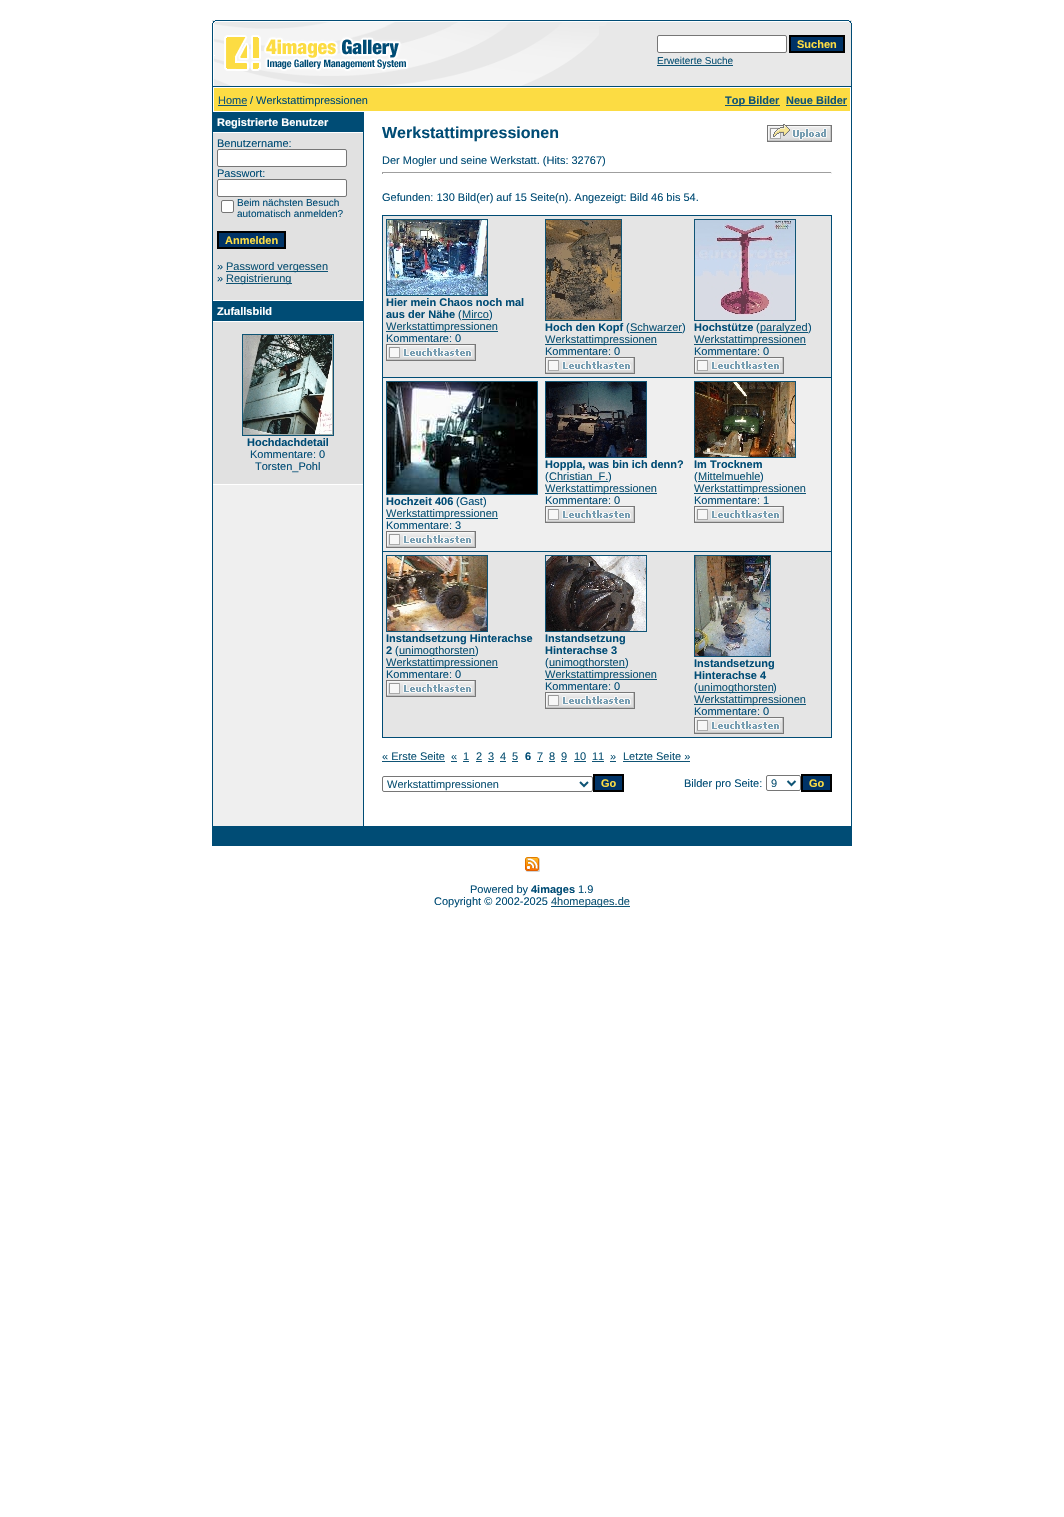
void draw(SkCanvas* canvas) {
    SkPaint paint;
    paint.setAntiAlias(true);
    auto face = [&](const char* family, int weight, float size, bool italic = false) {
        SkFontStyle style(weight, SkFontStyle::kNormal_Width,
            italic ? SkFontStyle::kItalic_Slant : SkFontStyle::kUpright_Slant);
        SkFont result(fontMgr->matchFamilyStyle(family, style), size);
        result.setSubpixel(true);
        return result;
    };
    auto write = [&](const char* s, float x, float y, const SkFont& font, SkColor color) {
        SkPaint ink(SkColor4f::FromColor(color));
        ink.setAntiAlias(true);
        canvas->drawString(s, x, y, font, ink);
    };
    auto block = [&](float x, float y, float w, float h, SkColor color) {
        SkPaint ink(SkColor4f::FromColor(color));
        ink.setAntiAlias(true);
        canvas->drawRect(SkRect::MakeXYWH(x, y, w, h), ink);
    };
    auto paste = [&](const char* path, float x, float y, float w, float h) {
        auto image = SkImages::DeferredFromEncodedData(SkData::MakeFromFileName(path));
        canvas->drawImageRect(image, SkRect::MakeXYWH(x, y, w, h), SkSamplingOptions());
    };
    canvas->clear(SK_ColorWHITE);
    block(212, 20, 640, 66, SkColorSetRGB(232, 232, 232));
    paste("pic1.png", 212, 20, 6, 6);
    paste("pic2.png", 218, 20, 628, 6);
    paste("pic3.png", 846, 20, 6, 6);
    paste("pic4.png", 212, 26, 6, 60);
    paste("pic5.png", 218, 26, 381, 60);
    paint.setColor(SK_ColorWHITE);
    canvas->drawRoundRect(SkRect::MakeXYWH(657.5f, 35.5f, 129, 17), 1.5f, 1.5f, paint);
    paint.setStyle(SkPaint::kStroke_Style);
    paint.setStrokeWidth(1);
    paint.setColor(SkColorSetRGB(118, 118, 118));
    canvas->drawRoundRect(SkRect::MakeXYWH(657.5f, 35.5f, 129, 17), 1.5f, 1.5f, paint);
    paint.setStyle(SkPaint::kFill_Style);
    paint.setColor(SkColorSetRGB(0, 51, 102));
    canvas->drawRect(SkRect::MakeXYWH(790, 36, 54, 16), paint);
    paint.setStyle(SkPaint::kStroke_Style);
    paint.setStrokeWidth(2);
    paint.setColor(SK_ColorBLACK);
    canvas->drawRect(SkRect::MakeXYWH(790, 36, 54, 16), paint);
    auto kFont1 = face("Liberation Sans", 700, 11);
    write("Suchen", 797, 48, kFont1, SkColorSetRGB(252, 220, 67));
    auto kFont2 = face("Liberation Sans", 400, 10);
    write("Erweiterte Suche", 657, 64, kFont2, SkColorSetRGB(15, 84, 117));
    block(657, 65, 76, 1, SkColorSetRGB(15, 84, 117));
    block(851, 26, 1, 60, SkColorSetRGB(0, 76, 117));
    block(212, 86, 640, 760, SkColorSetRGB(0, 76, 117));
    block(213, 87, 638, 739, SK_ColorWHITE);
    block(214, 88, 636, 23, SkColorSetRGB(252, 220, 67));
    auto kFont3 = face("Liberation Sans", 400, 11);
    write("Home", 218, 104, kFont3, SkColorSetRGB(15, 84, 117));
    block(218, 105, 29, 1, SkColorSetRGB(15, 84, 117));
    write("/ Werkstattimpressionen", 250, 104, kFont3, SkColorSetRGB(0, 76, 117));
    block(725, 105, 55, 1, SkColorSetRGB(15, 84, 117));
    write("Top Bilder", 725, 104, kFont1, SkColorSetRGB(15, 84, 117));
    write("Neue Bilder", 786, 104, kFont1, SkColorSetRGB(15, 84, 117));
    block(786, 105, 61, 1, SkColorSetRGB(15, 84, 117));
    block(213, 485, 150, 341, SkColorSetRGB(239, 239, 239));
    block(213, 112, 150, 20, SkColorSetRGB(0, 76, 117));
    write("Registrierte Benutzer", 217, 126, kFont1, SK_ColorWHITE);
    block(213, 133, 150, 167, SkColorSetRGB(225, 225, 225));
    write("Benutzername:", 217, 147, kFont3, SkColorSetRGB(0, 76, 117));
    paint.setStyle(SkPaint::kFill_Style);
    paint.setColor(SK_ColorWHITE);
    canvas->drawRoundRect(SkRect::MakeXYWH(217.5f, 149.5f, 129, 17), 1.5f, 1.5f, paint);
    paint.setStyle(SkPaint::kStroke_Style);
    paint.setStrokeWidth(1);
    paint.setColor(SkColorSetRGB(118, 118, 118));
    canvas->drawRoundRect(SkRect::MakeXYWH(217.5f, 149.5f, 129, 17), 1.5f, 1.5f, paint);
    write("Passwort:", 217, 177, kFont3, SkColorSetRGB(0, 76, 117));
    paint.setStyle(SkPaint::kFill_Style);
    paint.setColor(SK_ColorWHITE);
    canvas->drawRoundRect(SkRect::MakeXYWH(217.5f, 179.5f, 129, 17), 1.5f, 1.5f, paint);
    paint.setStyle(SkPaint::kStroke_Style);
    paint.setColor(SkColorSetRGB(118, 118, 118));
    canvas->drawRoundRect(SkRect::MakeXYWH(217.5f, 179.5f, 129, 17), 1.5f, 1.5f, paint);
    paint.setStyle(SkPaint::kFill_Style);
    paint.setColor(SK_ColorWHITE);
    canvas->drawRoundRect(SkRect::MakeXYWH(221.5f, 200.5f, 12, 12), 1.5f, 1.5f, paint);
    paint.setStyle(SkPaint::kStroke_Style);
    paint.setColor(SkColorSetRGB(118, 118, 118));
    canvas->drawRoundRect(SkRect::MakeXYWH(221.5f, 200.5f, 12, 12), 1.5f, 1.5f, paint);
    write("Beim nächsten Besuch", 237, 206, kFont2, SkColorSetRGB(0, 76, 117));
    write("automatisch anmelden?", 237, 217, kFont2, SkColorSetRGB(0, 76, 117));
    paint.setStyle(SkPaint::kFill_Style);
    paint.setColor(SkColorSetRGB(0, 51, 102));
    canvas->drawRect(SkRect::MakeXYWH(218, 232, 67, 16), paint);
    paint.setStyle(SkPaint::kStroke_Style);
    paint.setStrokeWidth(2);
    paint.setColor(SK_ColorBLACK);
    canvas->drawRect(SkRect::MakeXYWH(218, 232, 67, 16), paint);
    write("Anmelden", 225, 244, kFont1, SkColorSetRGB(252, 220, 67));
    write("»", 217, 270, kFont3, SkColorSetRGB(0, 76, 117));
    block(226, 271, 102, 1, SkColorSetRGB(15, 84, 117));
    write("Password vergessen", 226, 270, kFont3, SkColorSetRGB(15, 84, 117));
    write("»", 217, 282, kFont3, SkColorSetRGB(0, 76, 117));
    block(226, 283, 66, 1, SkColorSetRGB(15, 84, 117));
    write("Registrierung", 226, 282, kFont3, SkColorSetRGB(15, 84, 117));
    block(213, 301, 150, 20, SkColorSetRGB(0, 76, 117));
    write("Zufallsbild", 217, 315, kFont1, SK_ColorWHITE);
    block(213, 322, 150, 162, SkColorSetRGB(225, 225, 225));
    paint.setStrokeWidth(1);
    paint.setColor(SkColorSetRGB(15, 84, 117));
    canvas->drawRect(SkRect::MakeXYWH(242.5f, 334.5f, 91, 101), paint);
    paste("pic6.png", 243, 335, 90, 100);
    write("Hochdachdetail", 247, 446, kFont1, SkColorSetRGB(0, 76, 117));
    write("Kommentare: 0", 250, 458, kFont3, SkColorSetRGB(0, 76, 117));
    write("Torsten_Pohl", 255, 470, kFont3, SkColorSetRGB(0, 76, 117));
    block(363, 112, 1, 714, SkColorSetRGB(0, 76, 117));
    auto kFont4 = face("Liberation Sans", 700, 16);
    write("Werkstattimpressionen", 382, 138, kFont4, SkColorSetRGB(0, 76, 117));
    paste("pic7.png", 767, 124, 65, 18);
    write("Der Mogler und seine Werkstatt. (Hits: 32767)", 382, 164, kFont3, SkColorSetRGB(0, 76, 117));
    block(382, 172, 450, 1, SkColorSetRGB(159, 159, 159));
    block(831, 172, 1, 2, SkColorSetRGB(238, 238, 238));
    block(382, 172, 1, 2, SkColorSetRGB(159, 159, 159));
    write("Gefunden: 130 Bild(er) auf 15 Seite(n). Angezeigt: Bild 46 bis 54.", 382, 201, kFont3, SkColorSetRGB(0, 76, 117));
    block(382, 215, 450, 523, SkColorSetRGB(0, 76, 117));
    block(383, 216, 448, 161, SkColorSetRGB(229, 229, 229));
    canvas->drawRect(SkRect::MakeXYWH(386.5f, 219.5f, 101, 76), paint);
    paste("pic8.png", 387, 220, 100, 75);
    write("Hier mein Chaos noch mal", 386, 306, kFont1, SkColorSetRGB(0, 76, 117));
    write("aus der Nähe", 386, 318, kFont1, SkColorSetRGB(0, 76, 117));
    write("(", 458, 318, kFont3, SkColorSetRGB(0, 76, 117));
    write("Mirco", 462, 318, kFont3, SkColorSetRGB(15, 84, 117));
    block(462, 319, 27, 1, SkColorSetRGB(15, 84, 117));
    write(")", 489, 318, kFont3, SkColorSetRGB(0, 76, 117));
    block(386, 331, 112, 1, SkColorSetRGB(15, 84, 117));
    write("Werkstattimpressionen", 386, 330, kFont3, SkColorSetRGB(15, 84, 117));
    write("Kommentare: 0", 386, 342, kFont3, SkColorSetRGB(0, 76, 117));
    paste("pic9.png", 386, 344, 90, 17);
    canvas->drawRect(SkRect::MakeXYWH(545.5f, 219.5f, 76, 101), paint);
    paste("pic10.png", 546, 220, 75, 100);
    write("Hoch den Kopf", 545, 331, kFont1, SkColorSetRGB(0, 76, 117));
    write("(", 626, 331, kFont3, SkColorSetRGB(0, 76, 117));
    write("Schwarzer", 630, 331, kFont3, SkColorSetRGB(15, 84, 117));
    block(630, 332, 52, 1, SkColorSetRGB(15, 84, 117));
    write(")", 682, 331, kFont3, SkColorSetRGB(0, 76, 117));
    block(545, 344, 112, 1, SkColorSetRGB(15, 84, 117));
    write("Werkstattimpressionen", 545, 343, kFont3, SkColorSetRGB(15, 84, 117));
    write("Kommentare: 0", 545, 355, kFont3, SkColorSetRGB(0, 76, 117));
    paste("pic9.png", 545, 357, 90, 17);
    canvas->drawRect(SkRect::MakeXYWH(694.5f, 219.5f, 101, 101), paint);
    paste("pic11.png", 695, 220, 100, 100);
    write("Hochstütze", 694, 331, kFont1, SkColorSetRGB(0, 76, 117));
    write("(", 756, 331, kFont3, SkColorSetRGB(0, 76, 117));
    block(760, 332, 48, 1, SkColorSetRGB(15, 84, 117));
    write("paralyzed", 760, 331, kFont3, SkColorSetRGB(15, 84, 117));
    write(")", 808, 331, kFont3, SkColorSetRGB(0, 76, 117));
    block(694, 344, 112, 1, SkColorSetRGB(15, 84, 117));
    write("Werkstattimpressionen", 694, 343, kFont3, SkColorSetRGB(15, 84, 117));
    write("Kommentare: 0", 694, 355, kFont3, SkColorSetRGB(0, 76, 117));
    paste("pic9.png", 694, 357, 90, 17);
    block(383, 378, 448, 173, SkColorSetRGB(239, 239, 239));
    canvas->drawRect(SkRect::MakeXYWH(545.5f, 381.5f, 101, 76), paint);
    paste("pic12.png", 546, 382, 100, 75);
    write("Hoppla, was bin ich denn?", 545, 468, kFont1, SkColorSetRGB(0, 76, 117));
    write("(", 545, 480, kFont3, SkColorSetRGB(0, 76, 117));
    block(549, 481, 59, 1, SkColorSetRGB(15, 84, 117));
    write("Christian_F.", 549, 480, kFont3, SkColorSetRGB(15, 84, 117));
    write(")", 608, 480, kFont3, SkColorSetRGB(0, 76, 117));
    block(545, 493, 112, 1, SkColorSetRGB(15, 84, 117));
    write("Werkstattimpressionen", 545, 492, kFont3, SkColorSetRGB(15, 84, 117));
    write("Kommentare: 0", 545, 504, kFont3, SkColorSetRGB(0, 76, 117));
    paste("pic9.png", 545, 506, 90, 17);
    canvas->drawRect(SkRect::MakeXYWH(694.5f, 381.5f, 101, 76), paint);
    paste("pic13.png", 695, 382, 100, 75);
    write("Im Trocknem", 694, 468, kFont1, SkColorSetRGB(0, 76, 117));
    write("(", 694, 480, kFont3, SkColorSetRGB(0, 76, 117));
    write("Mittelmuehle", 698, 480, kFont3, SkColorSetRGB(15, 84, 117));
    block(698, 481, 62, 1, SkColorSetRGB(15, 84, 117));
    write(")", 760, 480, kFont3, SkColorSetRGB(0, 76, 117));
    block(694, 493, 112, 1, SkColorSetRGB(15, 84, 117));
    write("Werkstattimpressionen", 694, 492, kFont3, SkColorSetRGB(15, 84, 117));
    write("Kommentare: 1", 694, 504, kFont3, SkColorSetRGB(0, 76, 117));
    paste("pic9.png", 694, 506, 90, 17);
    canvas->drawRect(SkRect::MakeXYWH(386.5f, 381.5f, 151, 113), paint);
    paste("pic14.png", 387, 382, 150, 112);
    write("Hochzeit 406", 386, 505, kFont1, SkColorSetRGB(0, 76, 117));
    write("(Gast)", 456, 505, kFont3, SkColorSetRGB(0, 76, 117));
    block(386, 518, 112, 1, SkColorSetRGB(15, 84, 117));
    write("Werkstattimpressionen", 386, 517, kFont3, SkColorSetRGB(15, 84, 117));
    write("Kommentare: 3", 386, 529, kFont3, SkColorSetRGB(0, 76, 117));
    paste("pic9.png", 386, 531, 90, 17);
    block(383, 552, 448, 185, SkColorSetRGB(229, 229, 229));
    canvas->drawRect(SkRect::MakeXYWH(386.5f, 555.5f, 101, 76), paint);
    paste("pic15.png", 387, 556, 100, 75);
    write("Instandsetzung Hinterachse", 386, 642, kFont1, SkColorSetRGB(0, 76, 117));
    write("2", 386, 654, kFont1, SkColorSetRGB(0, 76, 117));
    write("(", 395, 654, kFont3, SkColorSetRGB(0, 76, 117));
    block(399, 655, 76, 1, SkColorSetRGB(15, 84, 117));
    write("unimogthorsten", 399, 654, kFont3, SkColorSetRGB(15, 84, 117));
    write(")", 475, 654, kFont3, SkColorSetRGB(0, 76, 117));
    block(386, 667, 112, 1, SkColorSetRGB(15, 84, 117));
    write("Werkstattimpressionen", 386, 666, kFont3, SkColorSetRGB(15, 84, 117));
    write("Kommentare: 0", 386, 678, kFont3, SkColorSetRGB(0, 76, 117));
    paste("pic9.png", 386, 680, 90, 17);
    canvas->drawRect(SkRect::MakeXYWH(545.5f, 555.5f, 101, 76), paint);
    paste("pic16.png", 546, 556, 100, 75);
    write("Instandsetzung", 545, 642, kFont1, SkColorSetRGB(0, 76, 117));
    write("Hinterachse 3", 545, 654, kFont1, SkColorSetRGB(0, 76, 117));
    write("(", 545, 666, kFont3, SkColorSetRGB(0, 76, 117));
    block(549, 667, 76, 1, SkColorSetRGB(15, 84, 117));
    write("unimogthorsten", 549, 666, kFont3, SkColorSetRGB(15, 84, 117));
    write(")", 625, 666, kFont3, SkColorSetRGB(0, 76, 117));
    block(545, 679, 112, 1, SkColorSetRGB(15, 84, 117));
    write("Werkstattimpressionen", 545, 678, kFont3, SkColorSetRGB(15, 84, 117));
    write("Kommentare: 0", 545, 690, kFont3, SkColorSetRGB(0, 76, 117));
    paste("pic9.png", 545, 692, 90, 17);
    canvas->drawRect(SkRect::MakeXYWH(694.5f, 555.5f, 76, 101), paint);
    paste("pic17.png", 695, 556, 75, 100);
    write("Instandsetzung", 694, 667, kFont1, SkColorSetRGB(0, 76, 117));
    write("Hinterachse 4", 694, 679, kFont1, SkColorSetRGB(0, 76, 117));
    write("(", 694, 691, kFont3, SkColorSetRGB(0, 76, 117));
    block(698, 692, 75, 1, SkColorSetRGB(15, 84, 117));
    write("unimogthorsten", 698, 691, kFont3, SkColorSetRGB(15, 84, 117));
    write(")", 773, 691, kFont3, SkColorSetRGB(0, 76, 117));
    block(694, 704, 112, 1, SkColorSetRGB(15, 84, 117));
    write("Werkstattimpressionen", 694, 703, kFont3, SkColorSetRGB(15, 84, 117));
    write("Kommentare: 0", 694, 715, kFont3, SkColorSetRGB(0, 76, 117));
    paste("pic9.png", 694, 717, 90, 17);
    write("« Erste Seite", 382, 760, kFont3, SkColorSetRGB(15, 84, 117));
    block(382, 761, 63, 1, SkColorSetRGB(15, 84, 117));
    write("«", 451, 760, kFont3, SkColorSetRGB(15, 84, 117));
    block(451, 761, 6, 1, SkColorSetRGB(15, 84, 117));
    write("1", 463, 760, kFont3, SkColorSetRGB(15, 84, 117));
    block(463, 761, 6, 1, SkColorSetRGB(15, 84, 117));
    write("2", 476, 760, kFont3, SkColorSetRGB(15, 84, 117));
    block(476, 761, 6, 1, SkColorSetRGB(15, 84, 117));
    write("3", 488, 760, kFont3, SkColorSetRGB(15, 84, 117));
    block(488, 761, 6, 1, SkColorSetRGB(15, 84, 117));
    write("4", 500, 760, kFont3, SkColorSetRGB(15, 84, 117));
    block(500, 761, 6, 1, SkColorSetRGB(15, 84, 117));
    write("5", 512, 760, kFont3, SkColorSetRGB(15, 84, 117));
    block(512, 761, 6, 1, SkColorSetRGB(15, 84, 117));
    write("6", 525, 760, kFont1, SkColorSetRGB(0, 76, 117));
    write("7", 537, 760, kFont3, SkColorSetRGB(15, 84, 117));
    block(537, 761, 6, 1, SkColorSetRGB(15, 84, 117));
    write("8", 549, 760, kFont3, SkColorSetRGB(15, 84, 117));
    block(549, 761, 6, 1, SkColorSetRGB(15, 84, 117));
    write("9", 561, 760, kFont3, SkColorSetRGB(15, 84, 117));
    block(561, 761, 6, 1, SkColorSetRGB(15, 84, 117));
    write("10", 574, 760, kFont3, SkColorSetRGB(15, 84, 117));
    block(574, 761, 12, 1, SkColorSetRGB(15, 84, 117));
    write("11", 592, 760, kFont3, SkColorSetRGB(15, 84, 117));
    block(592, 761, 12, 1, SkColorSetRGB(15, 84, 117));
    write("»", 610, 760, kFont3, SkColorSetRGB(15, 84, 117));
    block(610, 761, 6, 1, SkColorSetRGB(15, 84, 117));
    write("Letzte Seite »", 623, 760, kFont3, SkColorSetRGB(15, 84, 117));
    block(623, 761, 67, 1, SkColorSetRGB(15, 84, 117));
    paint.setColor(SkColorSetRGB(118, 118, 118));
    canvas->drawRoundRect(SkRect::MakeXYWH(382.5f, 776.5f, 210, 15), 1.5f, 1.5f, paint);
    paint.setStrokeWidth(2);
    paint.setColor(SkColorSetRGB(15, 84, 117));
    canvas->drawPath(SkPathBuilder().moveTo(580, 782).lineTo(584, 786).lineTo(588, 782).detach(), paint);
    write("Werkstattimpressionen", 387, 788, kFont3, SkColorSetRGB(15, 84, 117));
    paint.setStyle(SkPaint::kFill_Style);
    paint.setColor(SkColorSetRGB(0, 51, 102));
    canvas->drawRect(SkRect::MakeXYWH(594, 775, 29, 16), paint);
    paint.setStyle(SkPaint::kStroke_Style);
    paint.setColor(SK_ColorBLACK);
    canvas->drawRect(SkRect::MakeXYWH(594, 775, 29, 16), paint);
    write("Go", 601, 787, kFont1, SkColorSetRGB(252, 220, 67));
    write("Bilder pro Seite:", 684, 787, kFont3, SkColorSetRGB(0, 76, 117));
    paint.setStrokeWidth(1);
    paint.setColor(SkColorSetRGB(118, 118, 118));
    canvas->drawRoundRect(SkRect::MakeXYWH(766.5f, 775.5f, 34, 15), 1.5f, 1.5f, paint);
    paint.setStrokeWidth(2);
    paint.setColor(SkColorSetRGB(15, 84, 117));
    canvas->drawPath(SkPathBuilder().moveTo(787.5f, 781).lineTo(791.5f, 785).lineTo(795.5f, 781).detach(), paint);
    write("9", 771, 787, kFont3, SkColorSetRGB(15, 84, 117));
    paint.setStyle(SkPaint::kFill_Style);
    paint.setColor(SkColorSetRGB(0, 51, 102));
    canvas->drawRect(SkRect::MakeXYWH(802, 775, 29, 16), paint);
    paint.setStyle(SkPaint::kStroke_Style);
    paint.setColor(SK_ColorBLACK);
    canvas->drawRect(SkRect::MakeXYWH(802, 775, 29, 16), paint);
    write("Go", 809, 787, kFont1, SkColorSetRGB(252, 220, 67));
    paste("pic18.png", 525, 857, 15, 15);
    write("Powered by", 470, 893, kFont3, SkColorSetRGB(0, 76, 117));
    write("4images", 531, 893, kFont1, SkColorSetRGB(0, 76, 117));
    write("1.9", 578, 893, kFont3, SkColorSetRGB(0, 76, 117));
    write("Copyright © 2002-2025", 434, 905, kFont3, SkColorSetRGB(0, 76, 117));
    block(551, 906, 79, 1, SkColorSetRGB(15, 84, 117));
    write("4homepages.de", 551, 905, kFont3, SkColorSetRGB(15, 84, 117));
}
